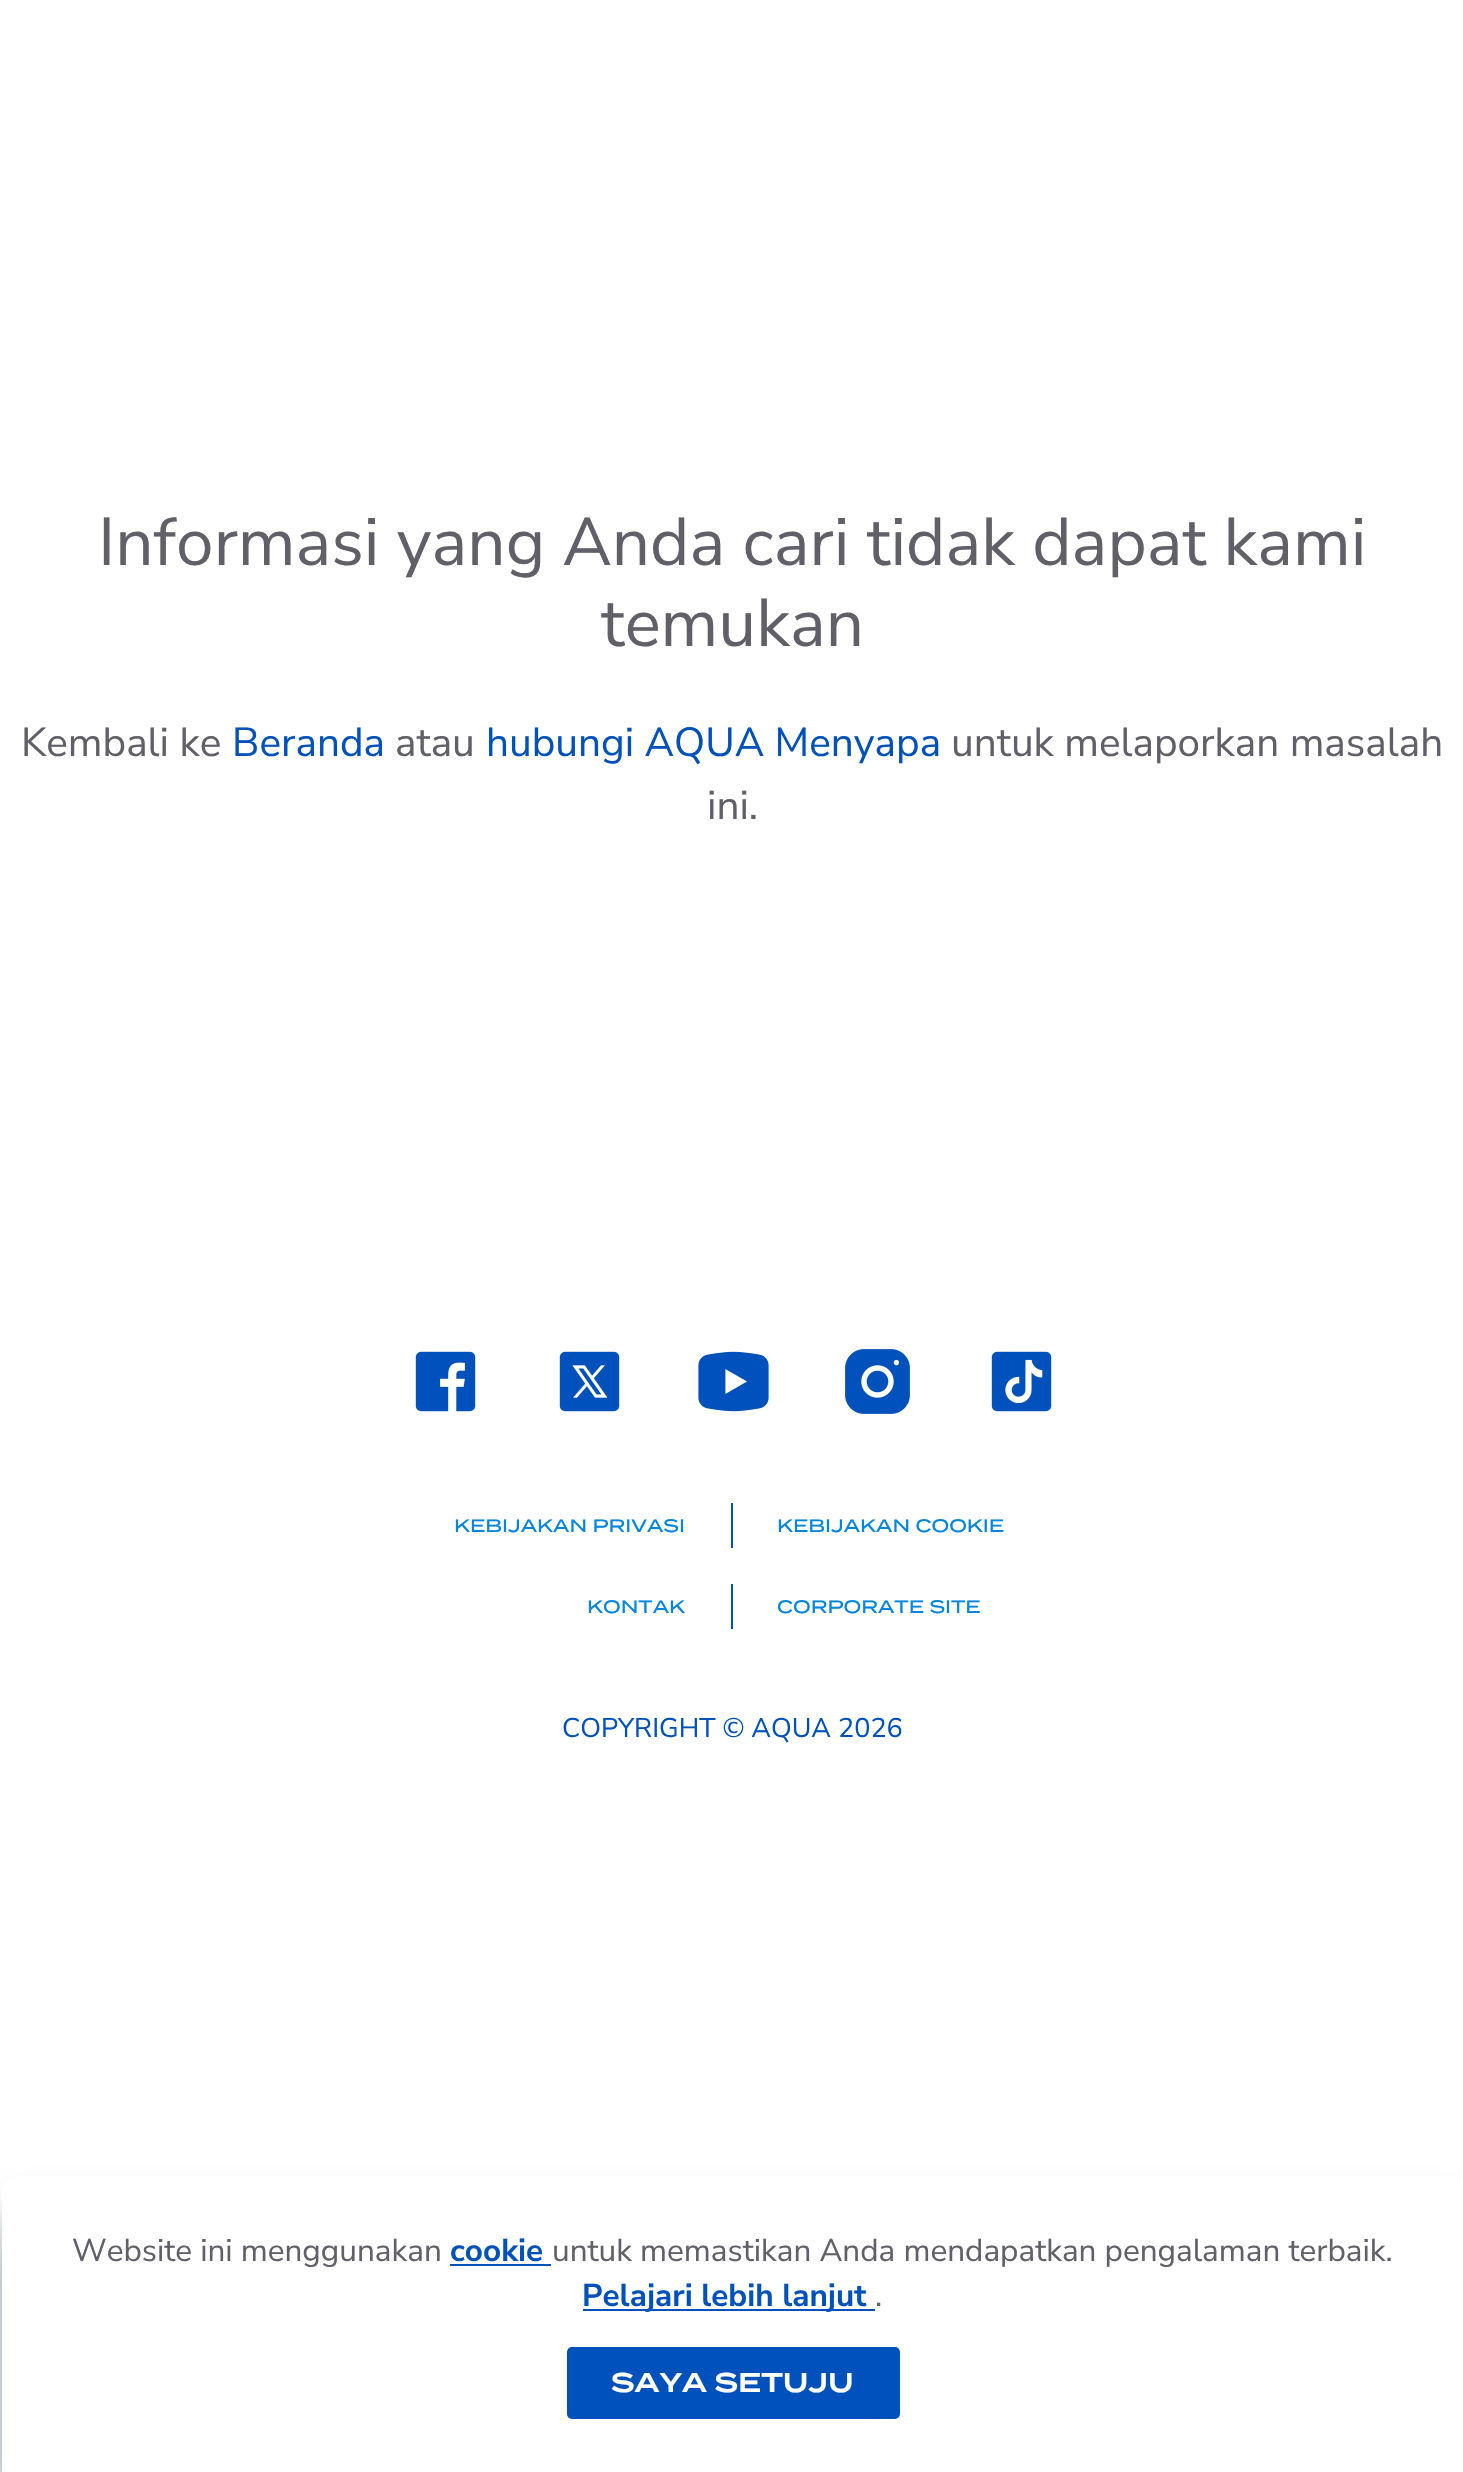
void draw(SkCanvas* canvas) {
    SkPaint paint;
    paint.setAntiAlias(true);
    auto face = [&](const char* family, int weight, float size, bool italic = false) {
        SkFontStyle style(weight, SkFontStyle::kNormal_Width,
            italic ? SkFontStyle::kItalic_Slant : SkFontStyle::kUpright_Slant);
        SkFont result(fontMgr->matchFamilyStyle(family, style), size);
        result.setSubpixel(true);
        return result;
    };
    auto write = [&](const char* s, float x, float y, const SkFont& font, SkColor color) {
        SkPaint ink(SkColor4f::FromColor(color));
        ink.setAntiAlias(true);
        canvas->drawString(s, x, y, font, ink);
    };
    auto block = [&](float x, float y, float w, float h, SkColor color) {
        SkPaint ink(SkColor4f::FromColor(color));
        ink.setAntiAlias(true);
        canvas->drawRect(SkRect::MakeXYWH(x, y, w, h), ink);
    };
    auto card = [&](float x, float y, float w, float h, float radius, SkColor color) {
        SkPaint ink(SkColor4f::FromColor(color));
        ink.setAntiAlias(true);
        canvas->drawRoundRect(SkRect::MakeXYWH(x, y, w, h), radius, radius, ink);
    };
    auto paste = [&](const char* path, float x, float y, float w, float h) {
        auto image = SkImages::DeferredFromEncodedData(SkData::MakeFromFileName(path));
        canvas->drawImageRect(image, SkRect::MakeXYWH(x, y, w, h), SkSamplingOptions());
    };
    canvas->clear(SK_ColorWHITE);
    auto kFont1 = face("Nunito Sans", 400, 67.5f);
    write("Informasi yang Anda cari tidak dapat kami", 98, 565, kFont1, SkColorSetRGB(97, 95, 104));
    write("temukan", 601, 646, kFont1, SkColorSetRGB(97, 95, 104));
    auto kFont2 = face("Nunito Sans", 400, 40.5f);
    write("Kembali ke", 21, 756, kFont2, SkColorSetRGB(97, 95, 104));
    write("Beranda", 232, 756, kFont2, SkColorSetRGB(0, 81, 187));
    write("atau", 395, 756, kFont2, SkColorSetRGB(97, 95, 104));
    write("hubungi AQUA Menyapa", 486, 756, kFont2, SkColorSetRGB(0, 81, 187));
    write("untuk melaporkan masalah", 951, 756, kFont2, SkColorSetRGB(97, 95, 104));
    write("ini.", 707, 819, kFont2, SkColorSetRGB(97, 95, 104));
    paste("pic1.png", 415, 1351, 61, 61);
    paste("pic2.png", 559, 1351, 61, 61);
    paste("pic3.png", 698, 1351, 71, 61);
    paste("pic4.png", 845, 1349, 65, 65);
    paste("pic5.png", 991, 1351, 61, 61);
    block(731, 1503, 2, 45, SkColorSetRGB(0, 81, 187));
    auto kFont3 = face("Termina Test", 500, 18);
    write("KEBIJAKAN PRIVASI", 454, 1532, kFont3, SkColorSetRGB(2, 133, 221));
    write("KEBIJAKAN COOKIE", 777, 1532, kFont3, SkColorSetRGB(2, 133, 221));
    block(731, 1584, 2, 45, SkColorSetRGB(0, 81, 187));
    write("KONTAK", 587, 1613, kFont3, SkColorSetRGB(2, 133, 221));
    write("CORPORATE SITE", 777, 1613, kFont3, SkColorSetRGB(2, 133, 221));
    auto kFont4 = face("Nunito Sans", 400, 27);
    write("COPYRIGHT © AQUA 2026", 562, 1737, kFont4, SkColorSetRGB(0, 81, 187));
    paint.setColor(SkColorSetRGB(100, 116, 139));
    paint.setMaskFilter(SkMaskFilter::MakeBlur(kNormal_SkBlurStyle, 11));
    canvas->drawRoundRect(SkRect::MakeXYWH(16, 2207, 1438, 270), 5, 5, paint);
    paint.setMaskFilter(nullptr);
    paint.setMaskFilter(SkMaskFilter::MakeBlur(kNormal_SkBlurStyle, 28));
    canvas->drawRoundRect(SkRect::MakeXYWH(14, 2232, 1442, 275), 7, 7, paint);
    paint.setMaskFilter(nullptr);
    paint.setColor(SK_ColorWHITE);
    canvas->drawPath(SkPathBuilder().moveTo(20, 2176).lineTo(1449, 2176).cubicTo(1459, 2176, 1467, 2184, 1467, 2194).lineTo(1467, 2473).lineTo(2, 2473).lineTo(2, 2194).cubicTo(2, 2184, 10, 2176, 20, 2176).close().detach(), paint);
    auto kFont5 = face("Nunito Sans", 400, 31.5f);
    write("Website ini menggunakan", 72, 2261, kFont5, SkColorSetRGB(97, 95, 104));
    auto kFont6 = face("Nunito Sans", 700, 31.5f);
    write("cookie", 450, 2261, kFont6, SkColorSetRGB(0, 81, 187));
    block(450, 2264, 101, 2, SkColorSetRGB(0, 81, 187));
    write("untuk memastikan Anda mendapatkan pengalaman terbaik.", 552, 2261, kFont5, SkColorSetRGB(97, 95, 104));
    block(583, 2309, 292, 2, SkColorSetRGB(0, 81, 187));
    write("Pelajari lebih lanjut", 582, 2306, kFont6, SkColorSetRGB(0, 81, 187));
    write(".", 875, 2306, kFont5, SkColorSetRGB(97, 95, 104));
    card(567, 2347, 333, 72, 5, SkColorSetRGB(0, 81, 187));
    auto kFont7 = face("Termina", 600, 27);
    write("SAYA SETUJU", 611, 2392, kFont7, SK_ColorWHITE);
}
